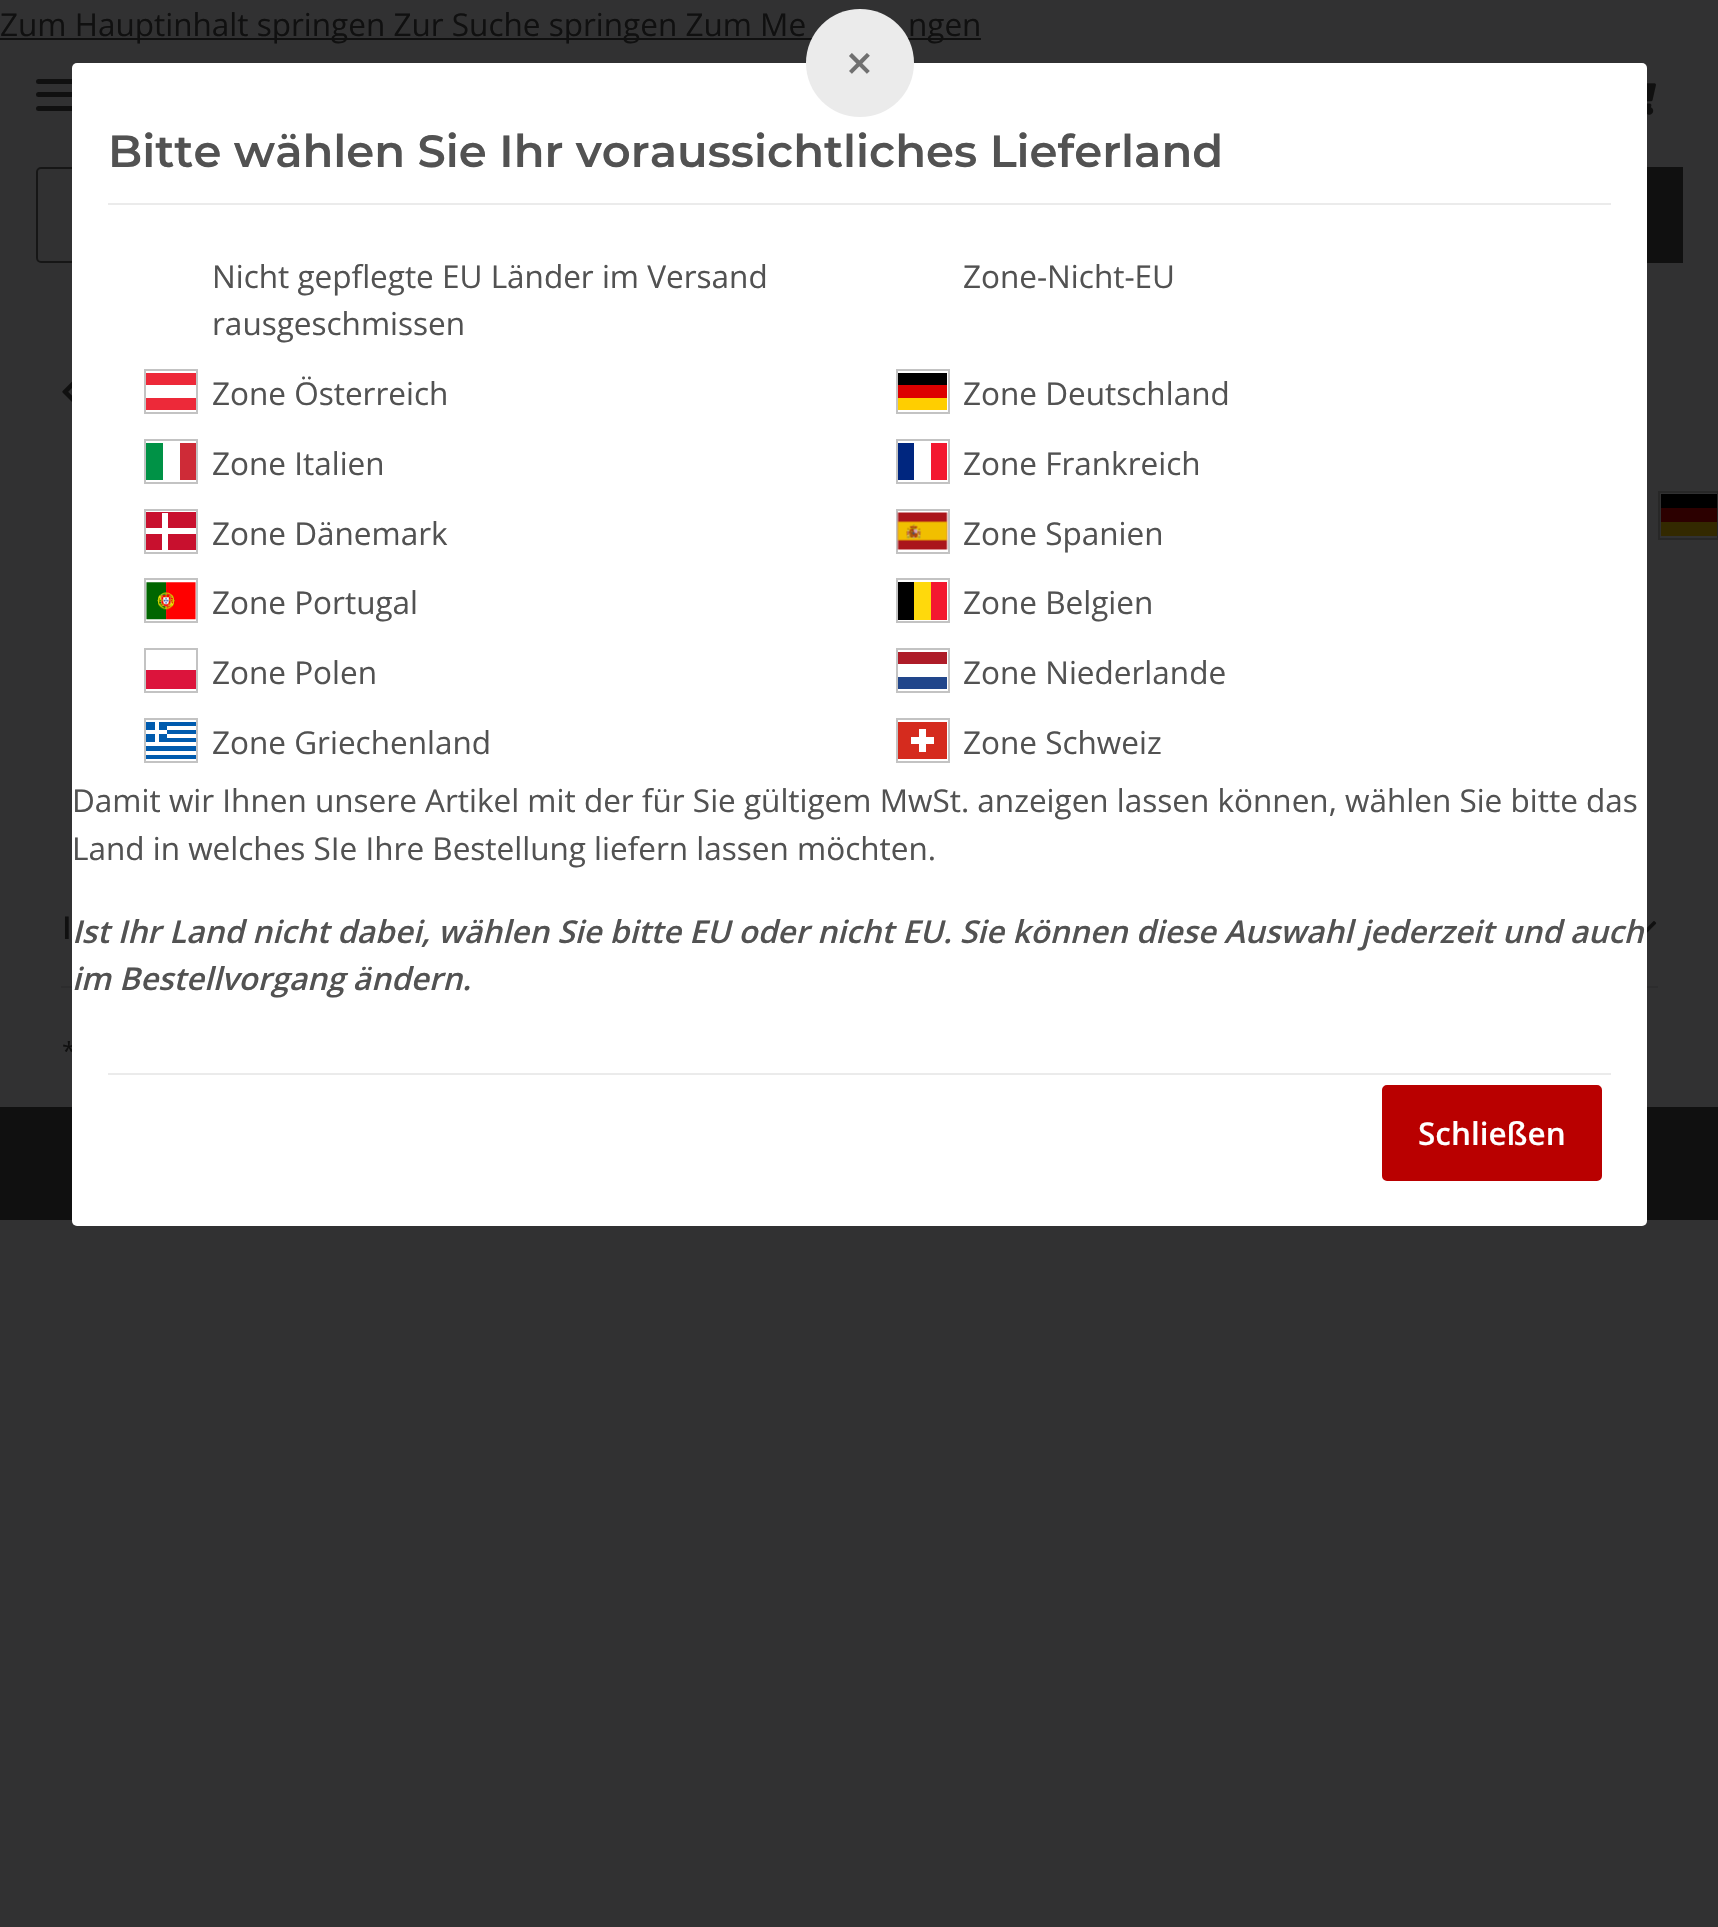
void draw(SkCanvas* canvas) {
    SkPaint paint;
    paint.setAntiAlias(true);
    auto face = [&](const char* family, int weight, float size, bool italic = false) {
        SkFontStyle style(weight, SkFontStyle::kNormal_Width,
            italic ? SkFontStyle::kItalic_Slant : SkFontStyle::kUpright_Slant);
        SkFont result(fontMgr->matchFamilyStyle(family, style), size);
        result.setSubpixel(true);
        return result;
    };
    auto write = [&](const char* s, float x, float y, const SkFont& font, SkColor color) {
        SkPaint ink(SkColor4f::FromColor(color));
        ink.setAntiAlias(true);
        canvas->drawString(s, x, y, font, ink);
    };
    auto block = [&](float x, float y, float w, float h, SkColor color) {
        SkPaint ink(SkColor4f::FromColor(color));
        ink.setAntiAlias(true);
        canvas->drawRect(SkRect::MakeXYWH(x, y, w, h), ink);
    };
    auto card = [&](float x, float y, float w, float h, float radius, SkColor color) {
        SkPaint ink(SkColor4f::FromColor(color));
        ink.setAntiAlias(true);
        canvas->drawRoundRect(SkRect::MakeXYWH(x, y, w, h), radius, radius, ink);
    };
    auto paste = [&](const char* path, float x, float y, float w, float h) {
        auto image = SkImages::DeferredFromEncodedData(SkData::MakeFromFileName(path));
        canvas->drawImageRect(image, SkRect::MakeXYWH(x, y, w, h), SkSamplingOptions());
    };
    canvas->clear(SkColorSetRGB(49, 49, 50));
    block(0, 38, 981, 2, SkColorSetRGB(16, 16, 16));
    auto kFont1 = face("Open Sans", 400, 31.5f);
    write("Zum Hauptinhalt springen Zur Suche springen Zum Me", 0, 36, kFont1, SkColorSetRGB(16, 16, 16));
    write("ngen", 908, 36, kFont1, SkColorSetRGB(16, 16, 16));
    card(36, 92, 45, 5, 2.5f, SkColorSetRGB(16, 16, 16));
    card(36, 79, 45, 5, 2.5f, SkColorSetRGB(16, 16, 16));
    card(36, 106, 45, 5, 2.5f, SkColorSetRGB(16, 16, 16));
    paint.setStyle(SkPaint::kStroke_Style);
    paint.setStrokeWidth(2);
    paint.setColor(SkColorSetRGB(22, 22, 22));
    canvas->drawRoundRect(SkRect::MakeXYWH(37, 168, 1544, 94), 4, 4, paint);
    auto kFont2 = face("Open Sans", 400, 25);
    write("*", 62, 1060, kFont2, SkColorSetRGB(16, 16, 16));
    block(0, 1107, 1718, 113, SkColorSetRGB(16, 16, 16));
    card(72, 63, 1575, 1163, 5, SK_ColorWHITE);
    block(108, 203, 1503, 2, SkColorSetRGB(235, 235, 235));
    paint.setStyle(SkPaint::kFill_Style);
    paint.setColor(SkColorSetRGB(235, 235, 235));
    canvas->drawCircle(860, 63, 54, paint);
    auto kFont3 = face("Open Sans", 600, 47);
    write("×", 846, 80, kFont3, SkColorSetRGB(112, 112, 112));
    auto kFont4 = face("Montserrat", 600, 45);
    write("Bitte wählen Sie Ihr voraussichtliches Lieferland", 108, 167, kFont4, SkColorSetRGB(82, 82, 82));
    write("Nicht gepflegte EU Länder im Versand", 212, 288, kFont1, SkColorSetRGB(82, 82, 82));
    write("rausgeschmissen", 212, 335, kFont1, SkColorSetRGB(82, 82, 82));
    write("Zone-Nicht-EU", 963, 288, kFont1, SkColorSetRGB(82, 82, 82));
    paint.setStyle(SkPaint::kStroke_Style);
    paint.setColor(SkColorSetRGB(195, 195, 195));
    canvas->drawRect(SkRect::MakeXYWH(145, 370, 52, 43), paint);
    paint.setStyle(SkPaint::kFill_Style);
    paint.setColor(SkColorSetRGB(237, 41, 57));
    canvas->drawPath(SkPathBuilder(SkPathFillType::kEvenOdd).moveTo(196, 410).lineTo(146, 410).lineTo(146, 398).lineTo(196, 398).close().moveTo(196, 385).lineTo(146, 385).lineTo(146, 373).lineTo(196, 373).close().detach(), paint);
    write("Zone Österreich", 212, 405, kFont1, SkColorSetRGB(82, 82, 82));
    paint.setStyle(SkPaint::kStroke_Style);
    paint.setColor(SkColorSetRGB(195, 195, 195));
    canvas->drawRect(SkRect::MakeXYWH(897, 370, 52, 43), paint);
    block(898, 398, 49, 12, SkColorSetRGB(255, 206, 0));
    block(898, 373, 49, 12, SK_ColorBLACK);
    block(898, 385, 49, 13, SkColorSetRGB(221, 0, 0));
    write("Zone Deutschland", 963, 405, kFont1, SkColorSetRGB(82, 82, 82));
    canvas->drawRect(SkRect::MakeXYWH(145, 440, 52, 43), paint);
    block(146, 443, 17, 37, SkColorSetRGB(0, 146, 70));
    block(180, 443, 16, 37, SkColorSetRGB(206, 43, 55));
    write("Zone Italien", 212, 475, kFont1, SkColorSetRGB(82, 82, 82));
    canvas->drawRect(SkRect::MakeXYWH(897, 440, 52, 43), paint);
    block(898, 443, 16, 37, SkColorSetRGB(0, 38, 127));
    block(931, 443, 16, 37, SkColorSetRGB(243, 24, 48));
    write("Zone Frankreich", 963, 475, kFont1, SkColorSetRGB(82, 82, 82));
    canvas->drawRect(SkRect::MakeXYWH(145, 510, 52, 43), paint);
    block(146, 512, 50, 38, SkColorSetRGB(200, 16, 46));
    block(162, 513, 6, 37, SK_ColorWHITE);
    block(146, 528, 50, 6, SK_ColorWHITE);
    write("Zone Dänemark", 212, 545, kFont1, SkColorSetRGB(82, 82, 82));
    canvas->drawRect(SkRect::MakeXYWH(897, 510, 52, 43), paint);
    paste("pic1.png", 897, 512, 51, 38);
    write("Zone Spanien", 963, 545, kFont1, SkColorSetRGB(82, 82, 82));
    canvas->drawRect(SkRect::MakeXYWH(145, 579, 52, 43), paint);
    paste("pic2.png", 146, 582, 50, 38);
    write("Zone Portugal", 212, 614, kFont1, SkColorSetRGB(82, 82, 82));
    canvas->drawRect(SkRect::MakeXYWH(897, 579, 52, 43), paint);
    block(898, 582, 16, 38, SK_ColorBLACK);
    block(914, 582, 17, 38, SkColorSetRGB(255, 217, 12));
    block(931, 582, 16, 38, SkColorSetRGB(243, 24, 48));
    write("Zone Belgien", 963, 614, kFont1, SkColorSetRGB(82, 82, 82));
    canvas->drawRect(SkRect::MakeXYWH(145, 649, 52, 43), paint);
    block(146, 670, 50, 19, SkColorSetRGB(220, 20, 60));
    write("Zone Polen", 212, 684, kFont1, SkColorSetRGB(82, 82, 82));
    canvas->drawRect(SkRect::MakeXYWH(897, 649, 52, 43), paint);
    block(898, 677, 49, 12, SkColorSetRGB(33, 70, 139));
    block(898, 652, 49, 12, SkColorSetRGB(174, 28, 40));
    write("Zone Niederlande", 963, 684, kFont1, SkColorSetRGB(82, 82, 82));
    canvas->drawRect(SkRect::MakeXYWH(145, 719, 52, 43), paint);
    paste("pic3.png", 146, 722, 50, 37);
    write("Zone Griechenland", 212, 754, kFont1, SkColorSetRGB(82, 82, 82));
    canvas->drawRect(SkRect::MakeXYWH(897, 719, 52, 43), paint);
    block(898, 722, 49, 37, SkColorSetRGB(213, 43, 30));
    block(911, 737, 23, 7, SK_ColorWHITE);
    block(919, 729, 7, 23, SK_ColorWHITE);
    write("Zone Schweiz", 963, 754, kFont1, SkColorSetRGB(82, 82, 82));
    write("Damit wir Ihnen unsere Artikel mit der für Sie gültigem MwSt. anzeigen lassen können, wählen Sie bitte das", 72, 812, kFont1, SkColorSetRGB(82, 82, 82));
    write("Land in welches SIe Ihre Bestellung liefern lassen möchten.", 72, 860, kFont1, SkColorSetRGB(82, 82, 82));
    auto kFont5 = face("Open Sans", 600, 31.5f, true);
    write("Ist Ihr Land nicht dabei, wählen Sie bitte EU oder nicht EU. Sie können diese Auswahl jederzeit und auch", 72, 943, kFont5, SkColorSetRGB(82, 82, 82));
    write("im Bestellvorgang ändern.", 72, 990, kFont5, SkColorSetRGB(82, 82, 82));
    block(108, 1073, 1503, 2, SkColorSetRGB(235, 235, 235));
    paint.setStyle(SkPaint::kFill_Style);
    paint.setColor(SkColorSetRGB(185, 0, 0));
    canvas->drawRoundRect(SkRect::MakeXYWH(1383, 1086, 218, 94), 4, 4, paint);
    paint.setStyle(SkPaint::kStroke_Style);
    canvas->drawRoundRect(SkRect::MakeXYWH(1383, 1086, 218, 94), 4, 4, paint);
    auto kFont6 = face("Open Sans", 600, 31.5f);
    write("Schließen", 1418, 1145, kFont6, SK_ColorWHITE);
    paste("pic4.png", 1647, 83, 9, 32);
    block(1647, 167, 36, 96, SkColorSetRGB(16, 16, 16));
    paste("pic5.png", 62, 381, 10, 21);
    paint.setColor(SkColorSetRGB(39, 39, 39));
    canvas->drawRect(SkRect::MakeXYWH(1659, 492, 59, 47), paint);
    block(1661, 494, 56, 14, SK_ColorBLACK);
    block(1661, 508, 56, 14, SkColorSetRGB(44, 0, 0));
    block(1661, 522, 56, 14, SkColorSetRGB(51, 41, 0));
    write("I", 62, 939, kFont6, SkColorSetRGB(16, 16, 16));
    block(61, 986, 11, 2, SkColorSetRGB(44, 44, 45));
    paste("pic6.png", 1647, 921, 10, 12);
    block(1647, 986, 11, 2, SkColorSetRGB(44, 44, 45));
}
